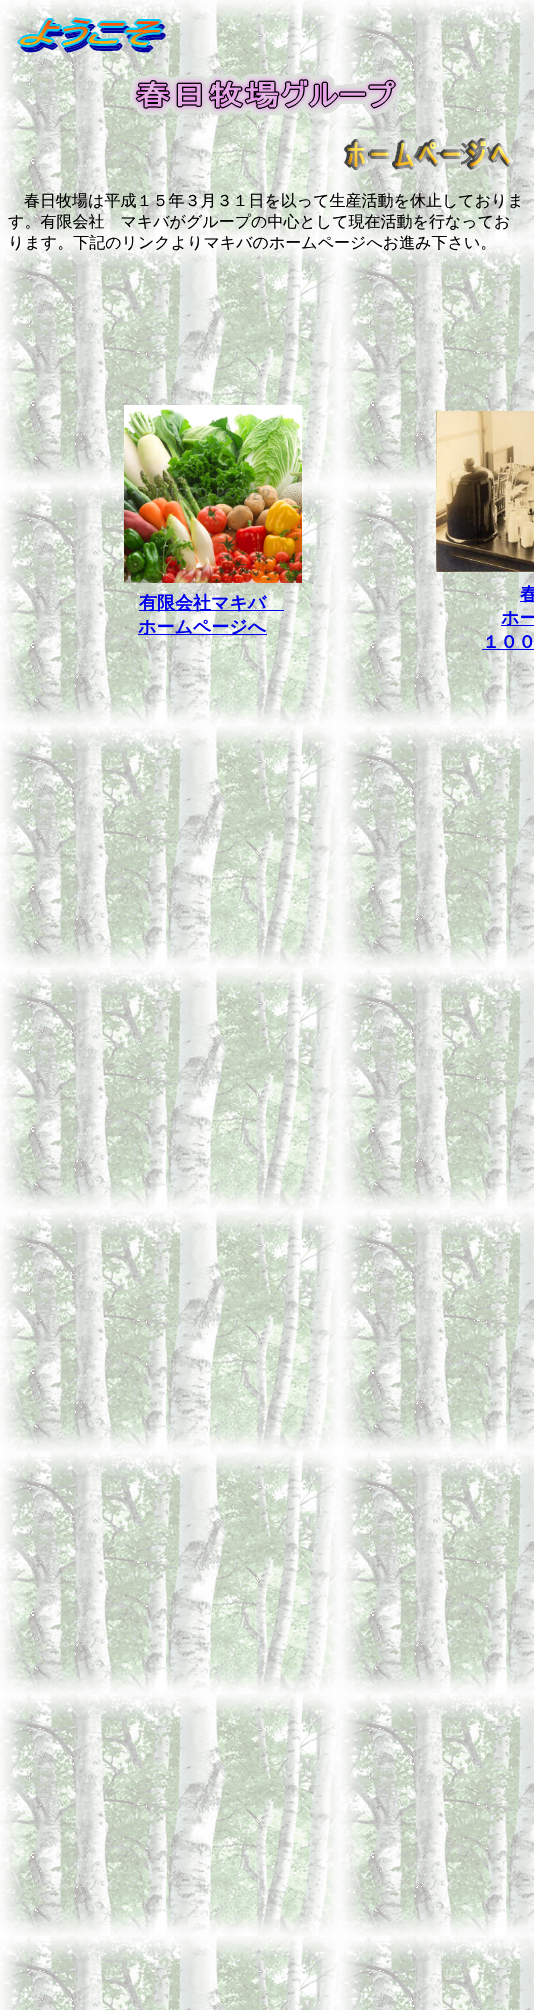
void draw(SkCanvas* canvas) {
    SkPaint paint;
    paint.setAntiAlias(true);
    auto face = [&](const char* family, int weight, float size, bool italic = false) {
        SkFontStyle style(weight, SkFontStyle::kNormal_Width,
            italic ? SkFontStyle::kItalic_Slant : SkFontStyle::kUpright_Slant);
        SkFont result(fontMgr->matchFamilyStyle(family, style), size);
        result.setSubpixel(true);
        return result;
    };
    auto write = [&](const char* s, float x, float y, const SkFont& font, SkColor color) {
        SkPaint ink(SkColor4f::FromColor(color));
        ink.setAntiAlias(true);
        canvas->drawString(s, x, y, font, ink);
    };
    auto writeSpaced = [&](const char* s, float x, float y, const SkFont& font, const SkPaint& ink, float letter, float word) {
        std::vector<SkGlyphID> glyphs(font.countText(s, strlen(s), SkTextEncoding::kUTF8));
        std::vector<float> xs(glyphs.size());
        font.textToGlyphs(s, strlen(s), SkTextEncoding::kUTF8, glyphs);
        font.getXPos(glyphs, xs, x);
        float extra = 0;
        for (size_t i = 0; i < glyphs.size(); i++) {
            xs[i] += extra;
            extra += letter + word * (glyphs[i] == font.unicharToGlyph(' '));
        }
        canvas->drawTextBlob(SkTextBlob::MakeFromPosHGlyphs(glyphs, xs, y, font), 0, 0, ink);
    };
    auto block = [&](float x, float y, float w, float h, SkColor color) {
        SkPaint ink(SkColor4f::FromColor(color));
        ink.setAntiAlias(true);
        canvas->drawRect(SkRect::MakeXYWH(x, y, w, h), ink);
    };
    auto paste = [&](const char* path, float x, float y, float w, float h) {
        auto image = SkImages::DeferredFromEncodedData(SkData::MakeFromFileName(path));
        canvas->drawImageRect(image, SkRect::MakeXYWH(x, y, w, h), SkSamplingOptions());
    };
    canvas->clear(SK_ColorWHITE);
    paste("pic1.png", 0, 0, 534, 2010);
    paste("pic2.png", 17, 17, 150, 36);
    paste("pic3.png", 130, 73, 272, 42);
    paste("pic4.png", 344, 136, 169, 36);
    auto kFont1 = face("WenQuanYi Zen Hei", 500, 16);
    write("春日牧場は平成１５年３月３１日を以って生産活動を休止しておりま", 24, 206, kFont1, SK_ColorBLACK);
    write("す。有限会社　マキバがグループの中心として現在活動を行なってお", 8, 227, kFont1, SK_ColorBLACK);
    write("ります。下記のリンクよりマキバのホームページへお進み下さい。", 8, 248, kFont1, SK_ColorBLACK);
    paste("pic5.png", 124, 405, 178, 178);
    paste("pic6.png", 436, 411, 98, 161);
    block(139, 610, 127, 1, SkColorSetRGB(0, 0, 238));
    auto kFont2 = face("WenQuanYi Zen Hei", 700, 18);
    write("有限会社マキバ", 139, 609, kFont2, SkColorSetRGB(0, 0, 238));
    block(266, 610, 18, 1, SkColorSetRGB(0, 0, 238));
    block(138, 634, 129, 1, SkColorSetRGB(0, 0, 238));
    write("ホームページへ", 138, 633, kFont2, SkColorSetRGB(0, 0, 238));
    block(520, 601, 14, 1, SkColorSetRGB(0, 0, 238));
    write("春", 520, 600, kFont2, SkColorSetRGB(0, 0, 238));
    block(501, 625, 33, 1, SkColorSetRGB(0, 0, 238));
    write("ホー", 501, 624, kFont2, SkColorSetRGB(0, 0, 238));
    paint.setColor(SkColorSetRGB(0, 0, 238));
    writeSpaced("１００", 482, 648, kFont2, paint, 0, -1);
    block(482, 649, 52, 1, SkColorSetRGB(0, 0, 238));
}
